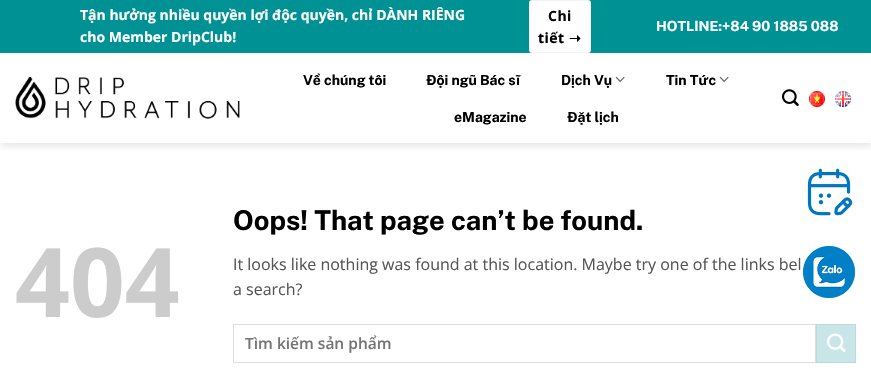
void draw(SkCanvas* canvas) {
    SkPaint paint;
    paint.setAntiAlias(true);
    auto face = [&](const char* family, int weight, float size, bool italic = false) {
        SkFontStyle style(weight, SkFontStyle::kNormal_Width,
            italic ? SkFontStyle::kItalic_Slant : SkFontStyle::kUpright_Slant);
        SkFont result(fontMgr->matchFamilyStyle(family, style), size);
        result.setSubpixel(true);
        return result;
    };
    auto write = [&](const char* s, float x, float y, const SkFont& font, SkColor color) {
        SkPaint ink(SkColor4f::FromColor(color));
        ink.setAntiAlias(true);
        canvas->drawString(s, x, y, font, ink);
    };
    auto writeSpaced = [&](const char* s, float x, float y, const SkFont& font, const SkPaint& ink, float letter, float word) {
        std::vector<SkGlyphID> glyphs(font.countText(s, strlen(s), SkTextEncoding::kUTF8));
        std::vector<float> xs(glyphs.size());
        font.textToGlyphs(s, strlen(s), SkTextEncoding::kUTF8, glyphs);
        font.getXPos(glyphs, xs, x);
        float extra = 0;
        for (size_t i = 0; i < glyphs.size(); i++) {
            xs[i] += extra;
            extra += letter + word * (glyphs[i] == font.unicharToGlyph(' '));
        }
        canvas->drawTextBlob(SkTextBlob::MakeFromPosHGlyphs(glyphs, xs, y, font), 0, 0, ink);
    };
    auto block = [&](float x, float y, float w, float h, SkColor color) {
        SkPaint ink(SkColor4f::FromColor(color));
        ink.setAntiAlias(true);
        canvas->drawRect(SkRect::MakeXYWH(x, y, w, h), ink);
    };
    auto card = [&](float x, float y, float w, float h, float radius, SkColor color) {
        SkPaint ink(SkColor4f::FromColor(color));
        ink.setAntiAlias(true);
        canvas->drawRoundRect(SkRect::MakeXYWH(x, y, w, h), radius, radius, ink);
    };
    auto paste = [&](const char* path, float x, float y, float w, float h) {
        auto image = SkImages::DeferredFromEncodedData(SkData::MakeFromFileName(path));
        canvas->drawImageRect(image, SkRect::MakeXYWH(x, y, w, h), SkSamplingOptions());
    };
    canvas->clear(SK_ColorWHITE);
    canvas->save();
    canvas->clipRect(SkRect::MakeXYWH(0, 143, 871, 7));
    paint.setColor(SkColorSetARGB(38, 0, 0, 0));
    paint.setMaskFilter(SkMaskFilter::MakeBlur(kNormal_SkBlurStyle, 5));
    canvas->drawRect(SkRect::MakeXYWH(1, 1, 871, 143), paint);
    paint.setMaskFilter(nullptr);
    canvas->restore();
    block(0, 0, 871, 53, SkColorSetRGB(0, 145, 148));
    auto kFont1 = face("Open Sans", 700, 14);
    write("Tận hưởng nhiều quyền lợi độc quyền, chỉ DÀNH RIÊNG", 80, 20, kFont1, SK_ColorWHITE);
    write("cho Member DripClub!", 80, 42, kFont1, SK_ColorWHITE);
    card(529, 0, 62, 53, 3, SK_ColorWHITE);
    paint.setStyle(SkPaint::kStroke_Style);
    paint.setStrokeWidth(1);
    paint.setColor(SkColorSetARGB(13, 0, 0, 0));
    canvas->drawRect(SkRect::MakeXYWH(529.5f, 0.5f, 61, 52), paint);
    paint.setStyle(SkPaint::kFill_Style);
    paint.setColor(SK_ColorBLACK);
    writeSpaced("Chi", 548, 21, kFont1, paint, 0.5f, 0);
    writeSpaced("tiết", 538, 43, kFont1, paint, 0.5f, 0);
    auto kFont2 = face("DejaVu Sans", 700, 14);
    writeSpaced("➝", 569, 43, kFont2, paint, 0.5f, 0);
    auto kFont3 = face("Public Sans", 700, 14);
    write("HOTLINE:+84 90 1885 088", 656, 31, kFont3, SK_ColorWHITE);
    paste("pic1.png", 15, 77, 225, 42);
    write("Về chúng tôi", 303, 85, kFont3, SK_ColorBLACK);
    write("Đội ngũ Bác sĩ", 426, 85, kFont3, SK_ColorBLACK);
    write("Dịch Vụ", 561, 85, kFont3, SK_ColorBLACK);
    paste("pic2.png", 615, 76, 10, 6);
    write("Tin Tức", 666, 85, kFont3, SK_ColorBLACK);
    paste("pic2.png", 719, 76, 10, 6);
    write("eMagazine", 454, 122, kFont3, SK_ColorBLACK);
    write("Đặt lịch", 567, 122, kFont3, SK_ColorBLACK);
    paste("pic3.png", 782, 89, 17, 17);
    paste("pic4.png", 809, 91, 16, 16);
    paste("pic5.png", 835, 91, 16, 16);
    auto kFont4 = face("Open Sans", 700, 96);
    write("404", 15, 317, kFont4, SkColorSetRGB(204, 204, 204));
    auto kFont5 = face("Public Sans", 700, 27.25f);
    write("Oops! That page can’t be found.", 233, 230, kFont5, SK_ColorBLACK);
    auto kFont6 = face("Open Sans", 400, 16);
    write("It looks like nothing was found at this location. Maybe try one of the links bel", 233, 270, kFont6, SkColorSetRGB(86, 86, 86));
    write("a search?", 233, 295, kFont6, SkColorSetRGB(86, 86, 86));
    paint.setStyle(SkPaint::kStroke_Style);
    paint.setColor(SkColorSetRGB(221, 221, 221));
    canvas->drawRect(SkRect::MakeXYWH(233.5f, 324.5f, 582, 38), paint);
    auto kFont7 = face("Open Sans", 600, 15.5f);
    write("Tìm kiếm sản phẩm", 245, 349, kFont7, SkColorSetRGB(117, 117, 117));
    paint.setStyle(SkPaint::kFill_Style);
    paint.setColor(SkColorSetRGB(200, 230, 231));
    canvas->drawRect(SkRect::MakeXYWH(816.5f, 324.5f, 39, 38), paint);
    paint.setStyle(SkPaint::kStroke_Style);
    paint.setColor(SkColorSetRGB(190, 219, 219));
    canvas->drawRect(SkRect::MakeXYWH(816.5f, 324.5f, 39, 38), paint);
    paste("pic6.png", 827, 333, 19, 20);
    paste("pic7.png", 807, 168, 46, 48);
    paste("pic8.png", 802, 246, 53, 52);
}
